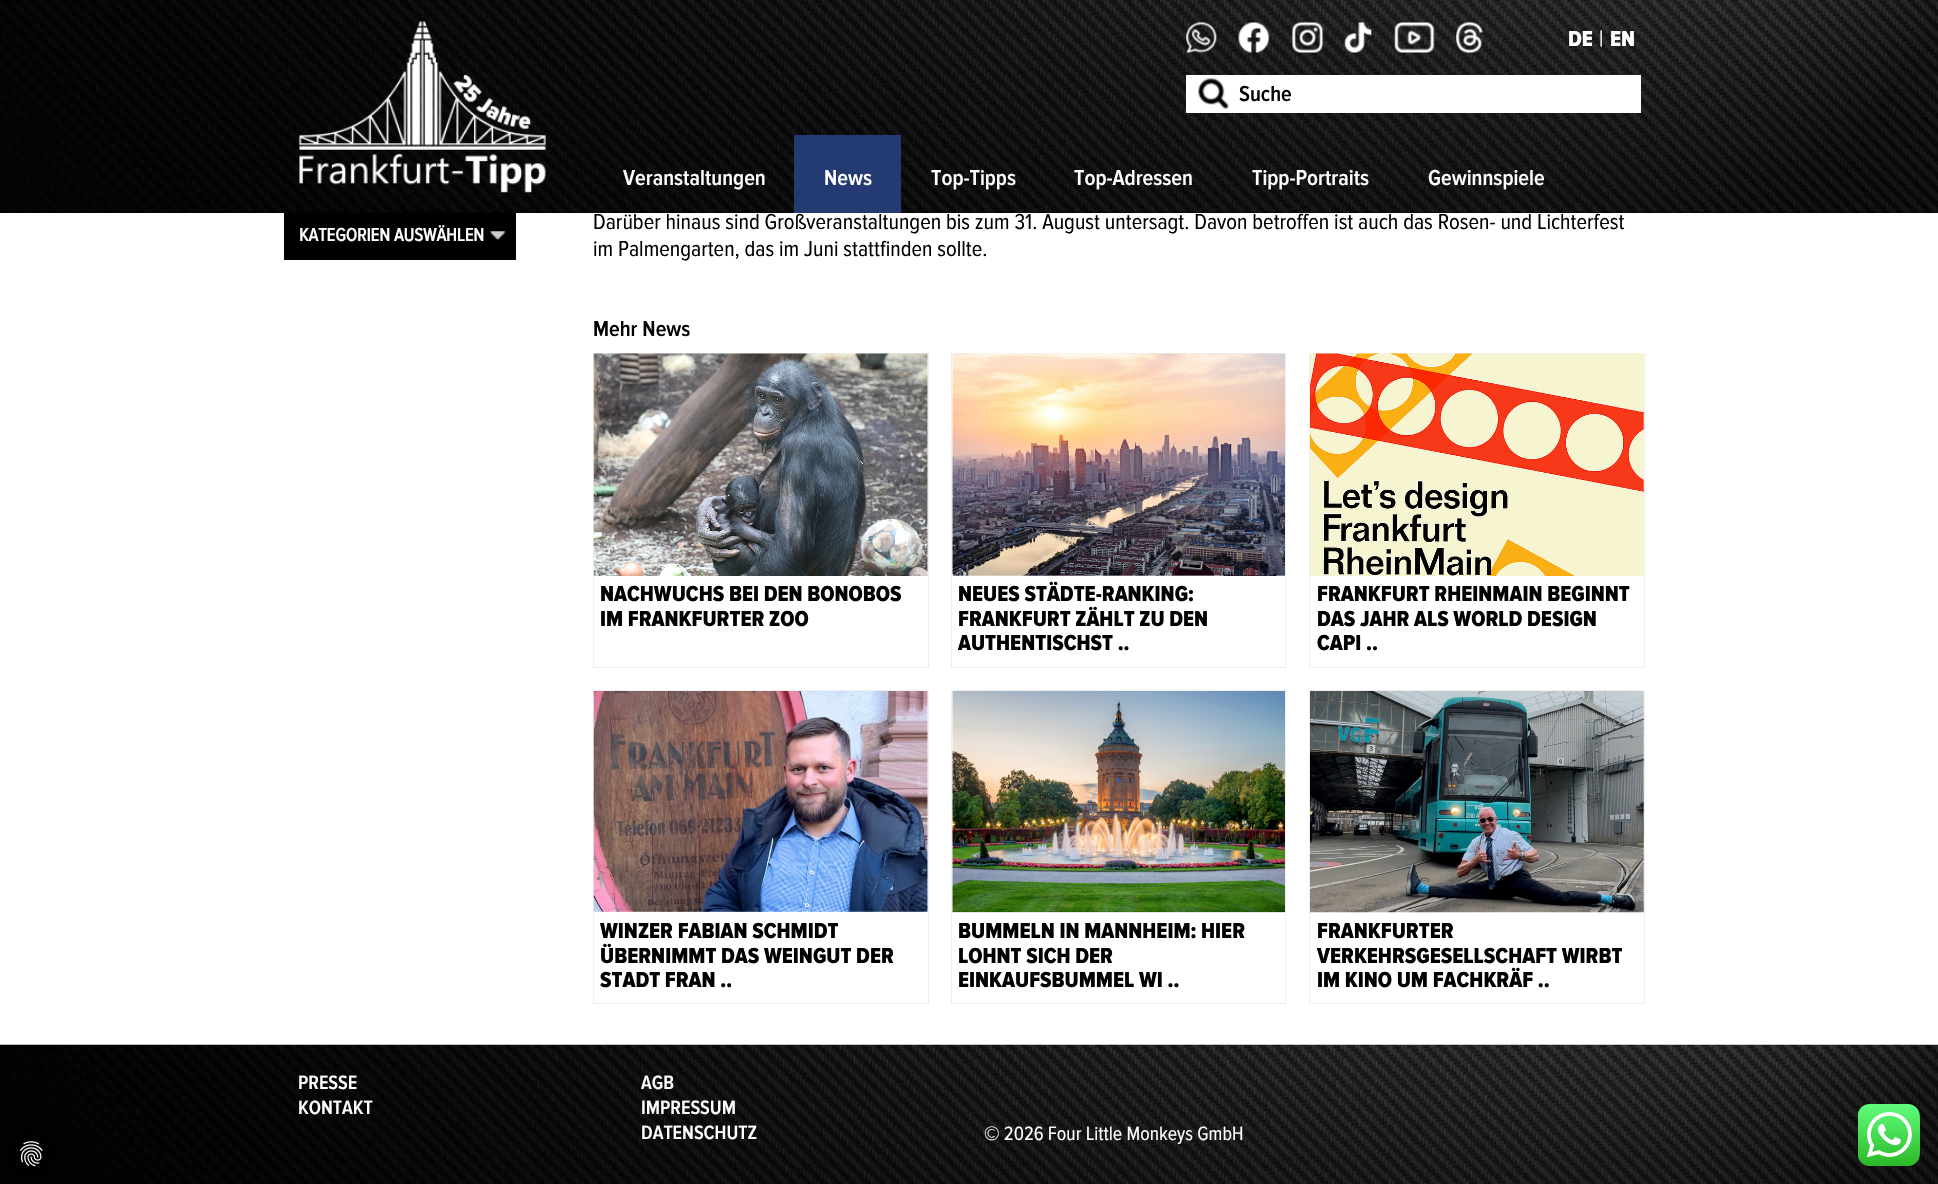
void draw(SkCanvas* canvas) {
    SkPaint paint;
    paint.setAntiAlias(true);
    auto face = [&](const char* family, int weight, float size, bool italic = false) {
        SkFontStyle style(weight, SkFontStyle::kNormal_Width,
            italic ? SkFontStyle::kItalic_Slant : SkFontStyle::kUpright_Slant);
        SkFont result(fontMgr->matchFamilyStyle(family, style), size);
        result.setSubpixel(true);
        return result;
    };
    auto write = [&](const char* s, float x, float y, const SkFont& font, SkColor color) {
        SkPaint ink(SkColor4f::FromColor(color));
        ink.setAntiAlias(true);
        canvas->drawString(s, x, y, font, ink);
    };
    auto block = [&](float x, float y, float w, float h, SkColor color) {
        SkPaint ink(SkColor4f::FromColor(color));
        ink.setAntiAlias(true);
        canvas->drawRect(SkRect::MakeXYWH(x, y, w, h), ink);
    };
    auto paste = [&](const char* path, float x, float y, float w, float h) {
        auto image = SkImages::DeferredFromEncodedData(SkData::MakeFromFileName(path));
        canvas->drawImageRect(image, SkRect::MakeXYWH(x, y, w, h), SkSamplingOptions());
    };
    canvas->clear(SK_ColorWHITE);
    block(0, 212, 1938, 1, SK_ColorBLACK);
    paste("pic1.png", 0, 0, 1938, 213);
    paste("pic2.png", 1186, 22, 31, 31);
    paste("pic3.png", 1238, 22, 32, 31);
    paste("pic4.png", 1292, 22, 32, 31);
    paste("pic5.png", 1344, 22, 28, 31);
    paste("pic6.png", 1394, 22, 41, 31);
    paste("pic7.png", 1456, 22, 28, 31);
    paste("pic8.png", 299, 21, 247, 172);
    auto kFont1 = face("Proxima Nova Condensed", 800, 22.5f);
    write("DE", 1568, 46, kFont1, SK_ColorWHITE);
    auto kFont2 = face("Proxima Nova Condensed", 400, 22.5f);
    write("|", 1599, 46, kFont2, SK_ColorWHITE);
    write("EN", 1610, 46, kFont1, SK_ColorWHITE);
    auto kFont3 = face("Proxima Nova Condensed", 600, 22.5f);
    write("Veranstaltungen", 623, 185, kFont3, SK_ColorWHITE);
    block(794, 135, 107, 78, SkColorSetRGB(36, 58, 114));
    write("News", 824, 185, kFont3, SK_ColorWHITE);
    write("Top-Tipps", 931, 185, kFont3, SK_ColorWHITE);
    write("Top-Adressen", 1074, 185, kFont3, SK_ColorWHITE);
    write("Tipp-Portraits", 1252, 185, kFont3, SK_ColorWHITE);
    write("Gewinnspiele", 1428, 185, kFont3, SK_ColorWHITE);
    block(284, 213, 232, 47, SK_ColorBLACK);
    paste("pic9.png", 490, 231, 16, 10);
    auto kFont4 = face("Proxima Nova Condensed", 700, 18.75f);
    write("KATEGORIEN AUSWÄHLEN", 299, 241, kFont4, SK_ColorWHITE);
    block(1186, 75, 455, 38, SK_ColorWHITE);
    paste("pic10.png", 1198, 78, 31, 32);
    write("Suche", 1239, 101, kFont3, SkColorSetRGB(1, 1, 1));
    write("Darüber hinaus sind Großveranstaltungen bis zum 31. August untersagt. Davon betroffen ist auch das Rosen- und Lichterfest", 593, 229, kFont2, SkColorSetRGB(1, 1, 1));
    write("im Palmengarten, das im Juni stattfinden sollte.", 593, 256, kFont2, SkColorSetRGB(1, 1, 1));
    write("Mehr News", 593, 336, kFont3, SkColorSetRGB(1, 1, 1));
    paint.setStyle(SkPaint::kStroke_Style);
    paint.setStrokeWidth(1);
    paint.setColor(SkColorSetRGB(239, 239, 239));
    canvas->drawRect(SkRect::MakeXYWH(593.5f, 353.5f, 335, 314), paint);
    paste("pic11.png", 593, 353, 335, 223);
    write("NACHWUCHS BEI DEN BONOBOS", 600, 601, kFont1, SkColorSetRGB(1, 1, 1));
    write("IM FRANKFURTER ZOO", 600, 626, kFont1, SkColorSetRGB(1, 1, 1));
    canvas->drawRect(SkRect::MakeXYWH(951.5f, 353.5f, 334, 314), paint);
    paste("pic12.png", 952, 353, 333, 223);
    write("NEUES STÄDTE-RANKING:", 958, 601, kFont1, SkColorSetRGB(1, 1, 1));
    write("FRANKFURT ZÄHLT ZU DEN", 958, 626, kFont1, SkColorSetRGB(1, 1, 1));
    write("AUTHENTISCHST ..", 958, 650, kFont1, SkColorSetRGB(1, 1, 1));
    canvas->drawRect(SkRect::MakeXYWH(1309.5f, 353.5f, 335, 314), paint);
    paste("pic13.png", 1310, 353, 334, 223);
    write("FRANKFURT RHEINMAIN BEGINNT", 1317, 601, kFont1, SkColorSetRGB(1, 1, 1));
    write("DAS JAHR ALS WORLD DESIGN", 1317, 626, kFont1, SkColorSetRGB(1, 1, 1));
    write("CAPI ..", 1317, 650, kFont1, SkColorSetRGB(1, 1, 1));
    canvas->drawRect(SkRect::MakeXYWH(593.5f, 690.5f, 335, 313), paint);
    paste("pic14.png", 593, 691, 335, 222);
    write("WINZER FABIAN SCHMIDT", 600, 938, kFont1, SkColorSetRGB(1, 1, 1));
    write("ÜBERNIMMT DAS WEINGUT DER", 600, 963, kFont1, SkColorSetRGB(1, 1, 1));
    write("STADT FRAN ..", 600, 987, kFont1, SkColorSetRGB(1, 1, 1));
    canvas->drawRect(SkRect::MakeXYWH(951.5f, 690.5f, 334, 313), paint);
    paste("pic15.png", 952, 691, 333, 222);
    write("BUMMELN IN MANNHEIM: HIER", 958, 938, kFont1, SkColorSetRGB(1, 1, 1));
    write("LOHNT SICH DER", 958, 963, kFont1, SkColorSetRGB(1, 1, 1));
    write("EINKAUFSBUMMEL WI ..", 958, 987, kFont1, SkColorSetRGB(1, 1, 1));
    canvas->drawRect(SkRect::MakeXYWH(1309.5f, 690.5f, 335, 313), paint);
    paste("pic16.png", 1310, 691, 334, 222);
    write("FRANKFURTER", 1317, 938, kFont1, SkColorSetRGB(1, 1, 1));
    write("VERKEHRSGESELLSCHAFT WIRBT", 1317, 963, kFont1, SkColorSetRGB(1, 1, 1));
    write("IM KINO UM FACHKRÄF ..", 1317, 987, kFont1, SkColorSetRGB(1, 1, 1));
    paste("pic18.png", 0, 1044, 1938, 140);
    paint.setStyle(SkPaint::kFill_Style);
    paint.setColor(SkColorSetARGB(204, 0, 0, 0));
    canvas->drawCircle(31, 1154, 25, paint);
    paste("pic17.png", 20, 1141, 23, 26);
    auto kFont5 = face("Proxima Nova Condensed", 600, 20);
    write("PRESSE", 298, 1089, kFont5, SK_ColorWHITE);
    write("KONTAKT", 298, 1114, kFont5, SK_ColorWHITE);
    write("AGB", 641, 1089, kFont5, SK_ColorWHITE);
    write("IMPRESSUM", 641, 1114, kFont5, SK_ColorWHITE);
    write("DATENSCHUTZ", 641, 1139, kFont5, SK_ColorWHITE);
    auto kFont6 = face("Proxima Nova Condensed", 400, 20);
    write("© 2026 Four Little Monkeys GmbH", 984, 1140, kFont6, SK_ColorWHITE);
    paste("pic19.png", 1858, 1104, 62, 62);
}
